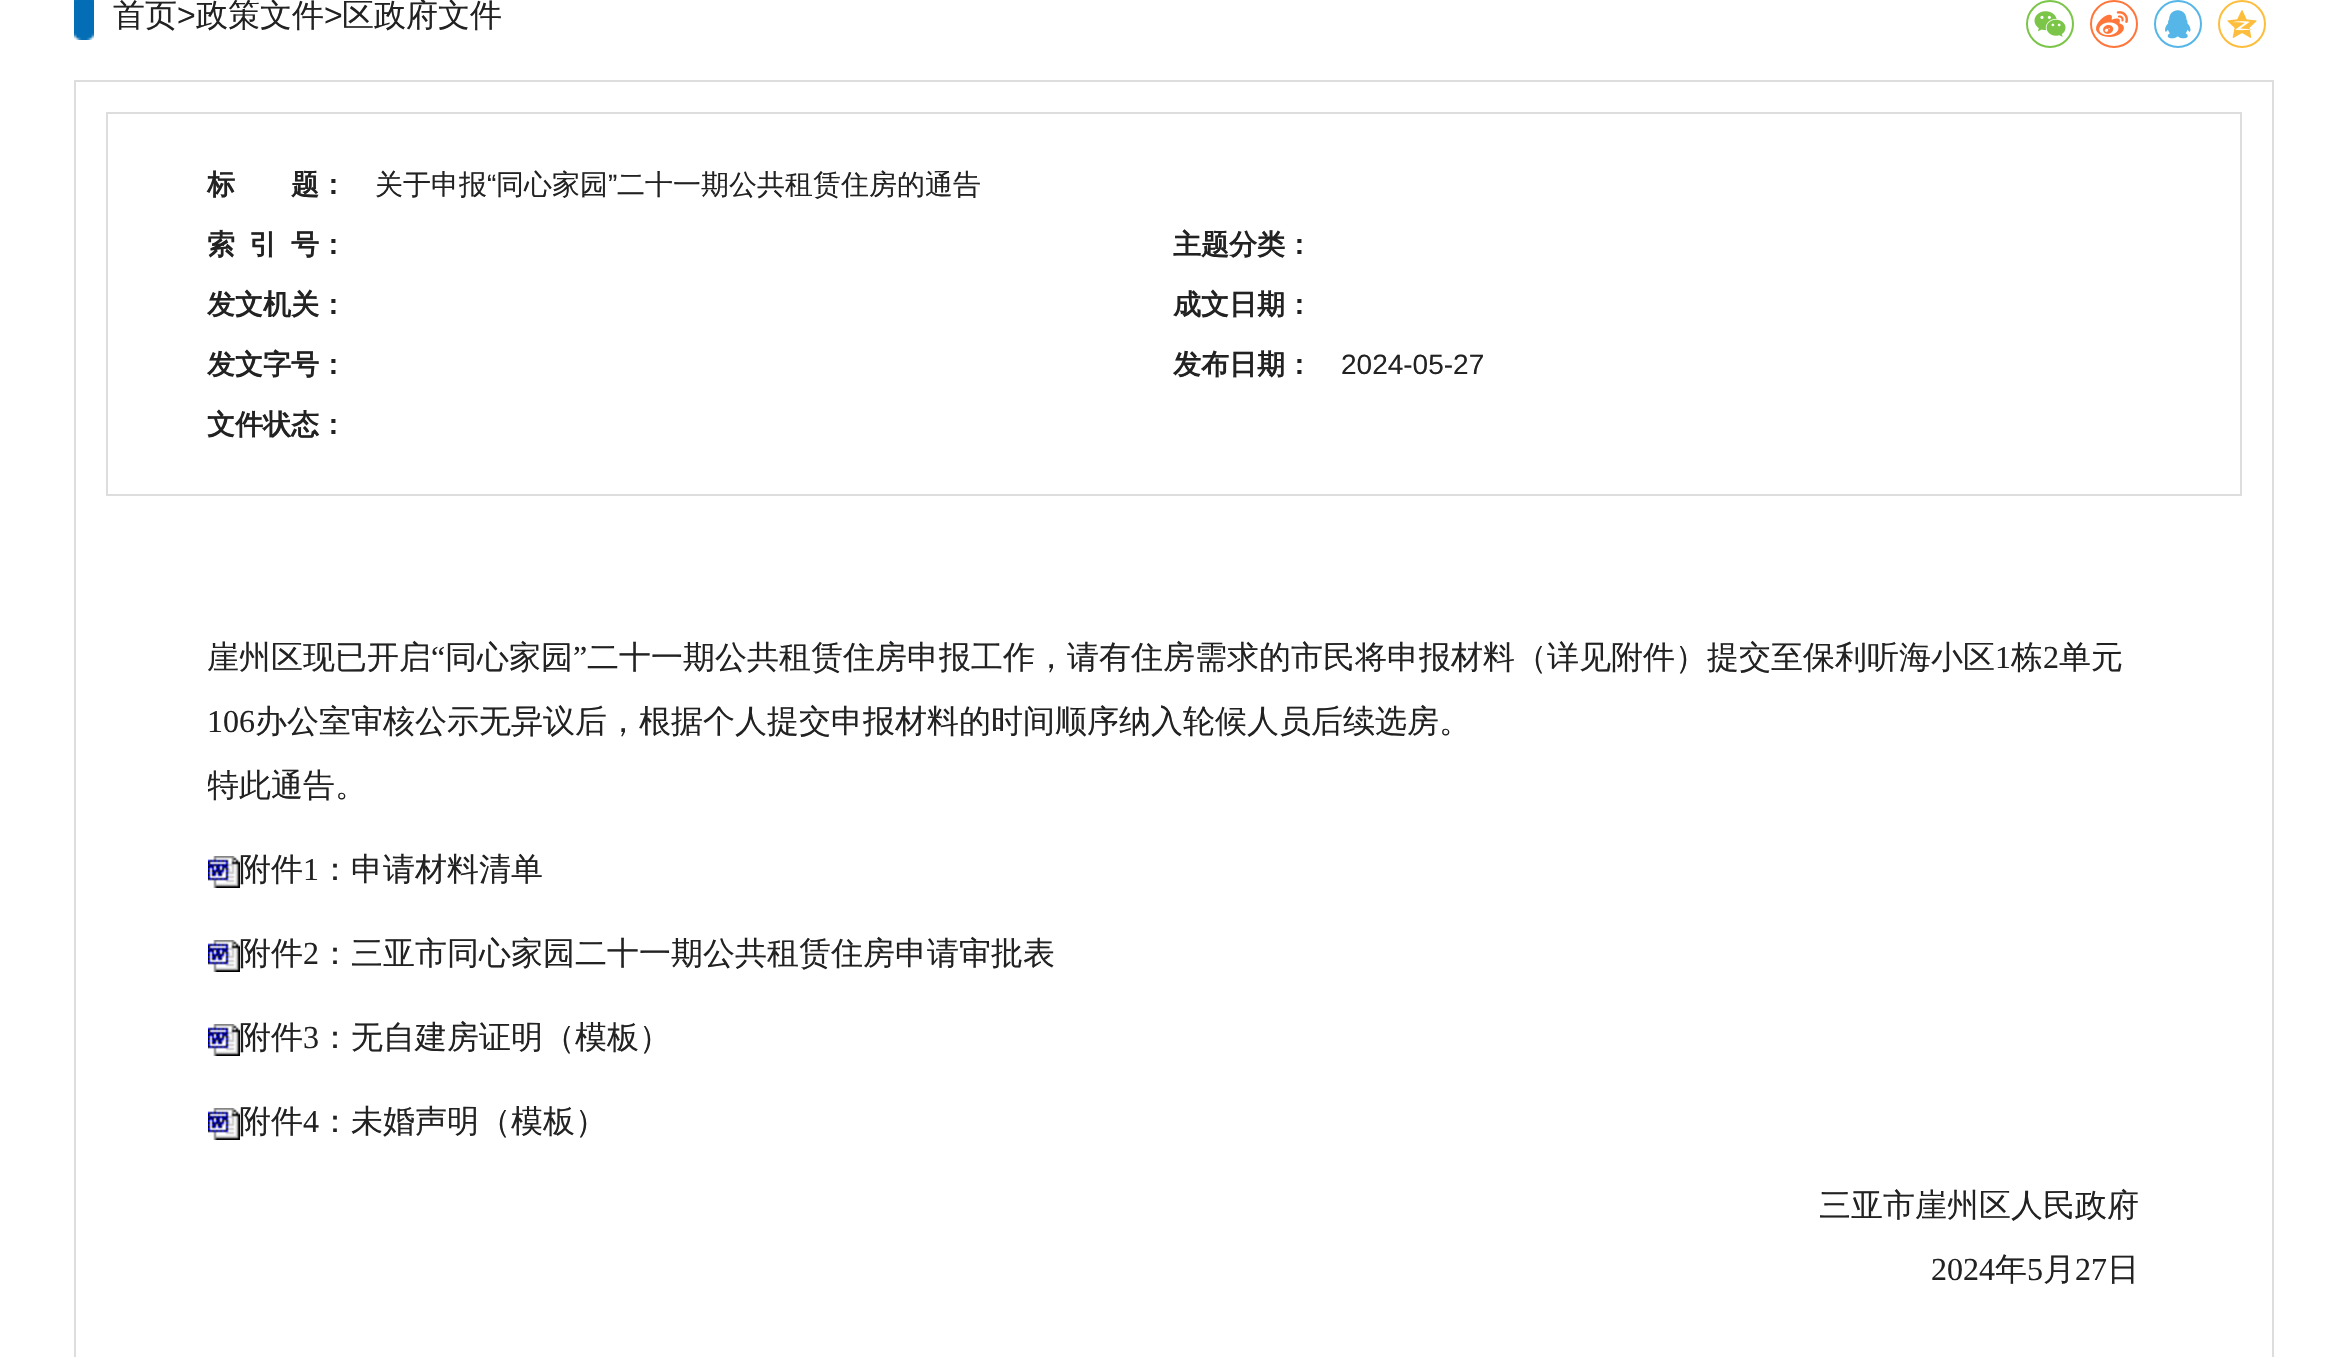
void draw(SkCanvas* canvas) {
    SkPaint paint;
    paint.setAntiAlias(true);
    auto face = [&](const char* family, int weight, float size, bool italic = false) {
        SkFontStyle style(weight, SkFontStyle::kNormal_Width,
            italic ? SkFontStyle::kItalic_Slant : SkFontStyle::kUpright_Slant);
        SkFont result(fontMgr->matchFamilyStyle(family, style), size);
        result.setSubpixel(true);
        return result;
    };
    auto write = [&](const char* s, float x, float y, const SkFont& font, SkColor color) {
        SkPaint ink(SkColor4f::FromColor(color));
        ink.setAntiAlias(true);
        canvas->drawString(s, x, y, font, ink);
    };
    auto paste = [&](const char* path, float x, float y, float w, float h) {
        auto image = SkImages::DeferredFromEncodedData(SkData::MakeFromFileName(path));
        canvas->drawImageRect(image, SkRect::MakeXYWH(x, y, w, h), SkSamplingOptions());
    };
    canvas->clear(SK_ColorWHITE);
    paste("pic1.png", 74, 0, 20, 40);
    auto kFont1 = face("WenQuanYi Zen Hei", 500, 32);
    write("首页", 113, 26, kFont1, SkColorSetRGB(34, 34, 34));
    auto kFont2 = face("Liberation Sans", 400, 32);
    write(">", 177, 26, kFont2, SkColorSetRGB(34, 34, 34));
    write("政策文件", 196, 26, kFont1, SkColorSetRGB(34, 34, 34));
    write(">", 324, 26, kFont2, SkColorSetRGB(34, 34, 34));
    write("区政府文件", 342, 26, kFont1, SkColorSetRGB(34, 34, 34));
    paint.setStyle(SkPaint::kStroke_Style);
    paint.setStrokeWidth(2);
    paint.setColor(SkColorSetRGB(123, 197, 73));
    canvas->drawCircle(2050, 24, 23, paint);
    paste("pic2.png", 2034, 11, 32, 26);
    paint.setColor(SkColorSetRGB(255, 118, 59));
    canvas->drawCircle(2114, 24, 23, paint);
    paste("pic3.png", 2096, 11, 32, 26);
    paint.setColor(SkColorSetRGB(86, 182, 231));
    canvas->drawCircle(2178, 24, 23, paint);
    paste("pic4.png", 2165, 10, 26, 29);
    paint.setColor(SkColorSetRGB(253, 190, 61));
    canvas->drawCircle(2242, 24, 23, paint);
    paste("pic5.png", 2227, 10, 30, 28);
    paint.setColor(SkColorSetRGB(221, 221, 221));
    canvas->drawRect(SkRect::MakeXYWH(75, 81, 2198, 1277), paint);
    canvas->drawRect(SkRect::MakeXYWH(107, 113, 2134, 382), paint);
    auto kFont3 = face("WenQuanYi Zen Hei", 700, 28);
    write("标", 207, 194, kFont3, SkColorSetRGB(34, 34, 34));
    write("题：", 291, 194, kFont3, SkColorSetRGB(34, 34, 34));
    auto kFont4 = face("WenQuanYi Zen Hei", 500, 28);
    write("关于申报", 375, 194, kFont4, SkColorSetRGB(34, 34, 34));
    auto kFont5 = face("Liberation Sans", 400, 28);
    write("“", 487, 194, kFont5, SkColorSetRGB(34, 34, 34));
    write("同心家园", 496, 194, kFont4, SkColorSetRGB(34, 34, 34));
    write("”", 608, 194, kFont5, SkColorSetRGB(34, 34, 34));
    write("二十一期公共租赁住房的通告", 617, 194, kFont4, SkColorSetRGB(34, 34, 34));
    write("索", 207, 254, kFont3, SkColorSetRGB(34, 34, 34));
    write("引", 249, 254, kFont3, SkColorSetRGB(34, 34, 34));
    write("号：", 291, 254, kFont3, SkColorSetRGB(34, 34, 34));
    write("主题分类：", 1173, 254, kFont3, SkColorSetRGB(34, 34, 34));
    write("发文机关：", 207, 314, kFont3, SkColorSetRGB(34, 34, 34));
    write("成文日期：", 1173, 314, kFont3, SkColorSetRGB(34, 34, 34));
    write("发文字号：", 207, 374, kFont3, SkColorSetRGB(34, 34, 34));
    write("发布日期：", 1173, 374, kFont3, SkColorSetRGB(34, 34, 34));
    write("2024-05-27", 1341, 374, kFont5, SkColorSetRGB(34, 34, 34));
    write("文件状态：", 207, 434, kFont3, SkColorSetRGB(34, 34, 34));
    write("崖州区现已开启", 207, 668, kFont1, SkColorSetRGB(34, 34, 34));
    auto kFont6 = face("Liberation Serif", 400, 32);
    write("“", 431, 668, kFont6, SkColorSetRGB(34, 34, 34));
    write("同心家园", 445, 668, kFont1, SkColorSetRGB(34, 34, 34));
    write("”", 573, 668, kFont6, SkColorSetRGB(34, 34, 34));
    write("二十一期公共租赁住房申报工作，请有住房需求的市民将申报材料（详见附件）提交至保利听海小区", 587, 668, kFont1, SkColorSetRGB(34, 34, 34));
    write("1", 1995, 668, kFont6, SkColorSetRGB(34, 34, 34));
    write("栋", 2011, 668, kFont1, SkColorSetRGB(34, 34, 34));
    write("2", 2043, 668, kFont6, SkColorSetRGB(34, 34, 34));
    write("单元", 2059, 668, kFont1, SkColorSetRGB(34, 34, 34));
    write("106", 207, 732, kFont6, SkColorSetRGB(34, 34, 34));
    write("办公室审核公示无异议后，根据个人提交申报材料的时间顺序纳入轮候人员后续选房。", 255, 732, kFont1, SkColorSetRGB(34, 34, 34));
    canvas->save();
    canvas->clipRect(SkRect::MakeXYWH(208, 546, 1932, 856));
    write("特此通告。", 207, 796, kFont1, SkColorSetRGB(34, 34, 34));
    canvas->restore();
    paste("pic6.png", 208, 856, 32, 32);
    write("附件", 239, 880, kFont1, SkColorSetRGB(34, 34, 34));
    write("1", 303, 880, kFont6, SkColorSetRGB(34, 34, 34));
    write("：申请材料清单", 319, 880, kFont1, SkColorSetRGB(34, 34, 34));
    paste("pic6.png", 208, 940, 32, 32);
    write("附件", 239, 964, kFont1, SkColorSetRGB(34, 34, 34));
    write("2", 303, 964, kFont6, SkColorSetRGB(34, 34, 34));
    write("：三亚市同心家园二十一期公共租赁住房申请审批表", 319, 964, kFont1, SkColorSetRGB(34, 34, 34));
    paste("pic6.png", 208, 1024, 32, 32);
    write("附件", 239, 1048, kFont1, SkColorSetRGB(34, 34, 34));
    write("3", 303, 1048, kFont6, SkColorSetRGB(34, 34, 34));
    write("：无自建房证明（模板）", 319, 1048, kFont1, SkColorSetRGB(34, 34, 34));
    paste("pic6.png", 208, 1108, 32, 32);
    write("附件", 239, 1132, kFont1, SkColorSetRGB(34, 34, 34));
    write("4", 303, 1132, kFont6, SkColorSetRGB(34, 34, 34));
    write("：未婚声明（模板）", 319, 1132, kFont1, SkColorSetRGB(34, 34, 34));
    write("三亚市崖州区人民政府", 1819, 1216, kFont1, SkColorSetRGB(34, 34, 34));
    write("2024", 1931, 1280, kFont6, SkColorSetRGB(34, 34, 34));
    write("年", 1995, 1280, kFont1, SkColorSetRGB(34, 34, 34));
    write("5", 2027, 1280, kFont6, SkColorSetRGB(34, 34, 34));
    write("月", 2043, 1280, kFont1, SkColorSetRGB(34, 34, 34));
    write("27", 2075, 1280, kFont6, SkColorSetRGB(34, 34, 34));
    write("日", 2107, 1280, kFont1, SkColorSetRGB(34, 34, 34));
}
